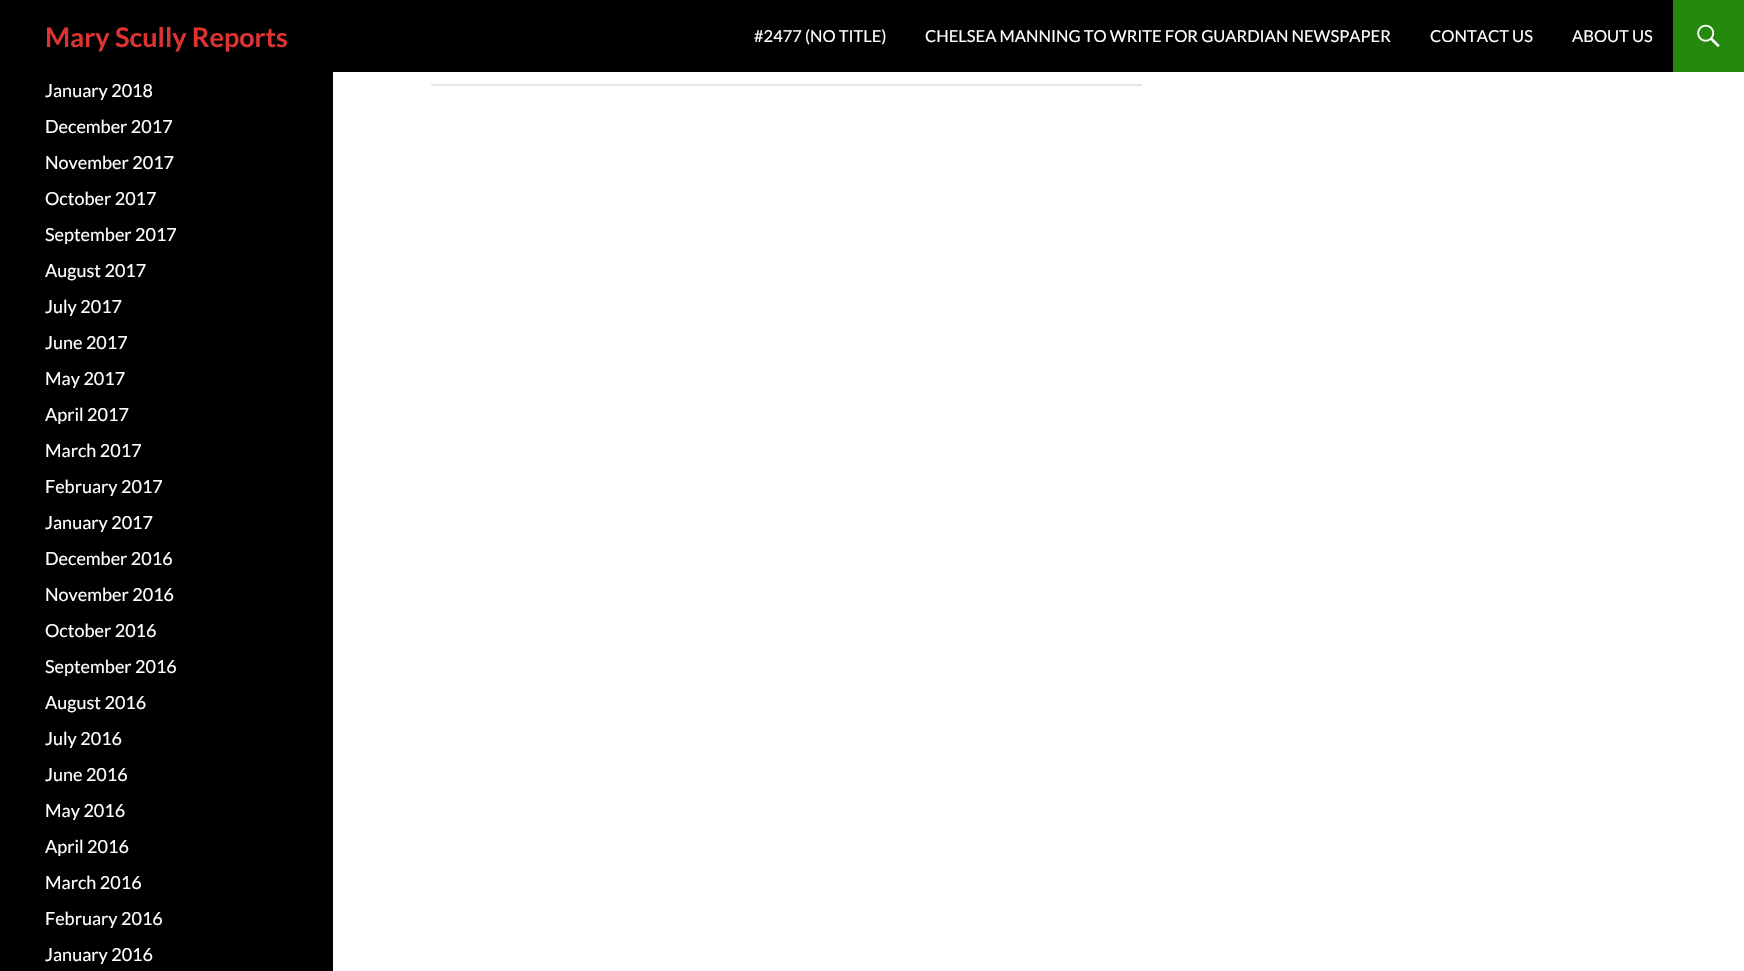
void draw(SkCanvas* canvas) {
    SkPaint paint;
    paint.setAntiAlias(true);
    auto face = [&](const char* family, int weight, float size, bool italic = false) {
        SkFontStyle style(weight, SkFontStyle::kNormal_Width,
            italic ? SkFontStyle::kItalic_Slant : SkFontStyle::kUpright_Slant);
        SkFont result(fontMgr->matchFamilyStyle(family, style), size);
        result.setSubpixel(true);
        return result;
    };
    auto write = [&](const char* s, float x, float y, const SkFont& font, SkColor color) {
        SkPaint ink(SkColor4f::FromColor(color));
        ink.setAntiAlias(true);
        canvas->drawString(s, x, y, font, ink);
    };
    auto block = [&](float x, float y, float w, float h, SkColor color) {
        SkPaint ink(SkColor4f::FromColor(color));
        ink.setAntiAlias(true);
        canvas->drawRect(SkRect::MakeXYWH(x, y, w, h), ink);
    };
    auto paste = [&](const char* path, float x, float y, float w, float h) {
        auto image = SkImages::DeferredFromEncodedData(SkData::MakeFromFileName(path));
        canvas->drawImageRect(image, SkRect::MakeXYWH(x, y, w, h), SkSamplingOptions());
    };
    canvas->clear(SK_ColorWHITE);
    block(0, 0, 1673, 72, SK_ColorBLACK);
    auto kFont1 = face("Lato", 700, 27);
    write("Mary Scully Reports", 45, 47, kFont1, SkColorSetRGB(221, 51, 51));
    auto kFont2 = face("Lato", 400, 16.5f);
    write("#2477 (NO TITLE)", 754, 42, kFont2, SK_ColorWHITE);
    write("CHELSEA MANNING TO WRITE FOR GUARDIAN NEWSPAPER", 925, 42, kFont2, SK_ColorWHITE);
    write("CONTACT US", 1430, 42, kFont2, SK_ColorWHITE);
    write("ABOUT US", 1572, 42, kFont2, SK_ColorWHITE);
    block(1673, 0, 71, 72, SkColorSetRGB(36, 137, 13));
    paste("pic1.png", 1697, 24, 23, 24);
    block(0, 72, 333, 899, SK_ColorBLACK);
    auto kFont3 = face("Lato", 400, 18);
    write("January 2018", 45, 97, kFont3, SK_ColorWHITE);
    write("December 2017", 45, 133, kFont3, SK_ColorWHITE);
    write("November 2017", 45, 169, kFont3, SK_ColorWHITE);
    write("October 2017", 45, 205, kFont3, SK_ColorWHITE);
    write("September 2017", 45, 241, kFont3, SK_ColorWHITE);
    write("August 2017", 45, 277, kFont3, SK_ColorWHITE);
    write("July 2017", 45, 313, kFont3, SK_ColorWHITE);
    write("June 2017", 45, 349, kFont3, SK_ColorWHITE);
    write("May 2017", 45, 385, kFont3, SK_ColorWHITE);
    write("April 2017", 45, 421, kFont3, SK_ColorWHITE);
    write("March 2017", 45, 457, kFont3, SK_ColorWHITE);
    write("February 2017", 45, 493, kFont3, SK_ColorWHITE);
    write("January 2017", 45, 529, kFont3, SK_ColorWHITE);
    write("December 2016", 45, 565, kFont3, SK_ColorWHITE);
    write("November 2016", 45, 601, kFont3, SK_ColorWHITE);
    write("October 2016", 45, 637, kFont3, SK_ColorWHITE);
    write("September 2016", 45, 673, kFont3, SK_ColorWHITE);
    write("August 2016", 45, 709, kFont3, SK_ColorWHITE);
    write("July 2016", 45, 745, kFont3, SK_ColorWHITE);
    write("June 2016", 45, 781, kFont3, SK_ColorWHITE);
    write("May 2016", 45, 817, kFont3, SK_ColorWHITE);
    write("April 2016", 45, 853, kFont3, SK_ColorWHITE);
    write("March 2016", 45, 889, kFont3, SK_ColorWHITE);
    write("February 2016", 45, 925, kFont3, SK_ColorWHITE);
    write("January 2016", 45, 961, kFont3, SK_ColorWHITE);
    block(431, 84, 711, 2, SkColorSetRGB(230, 230, 230));
}
